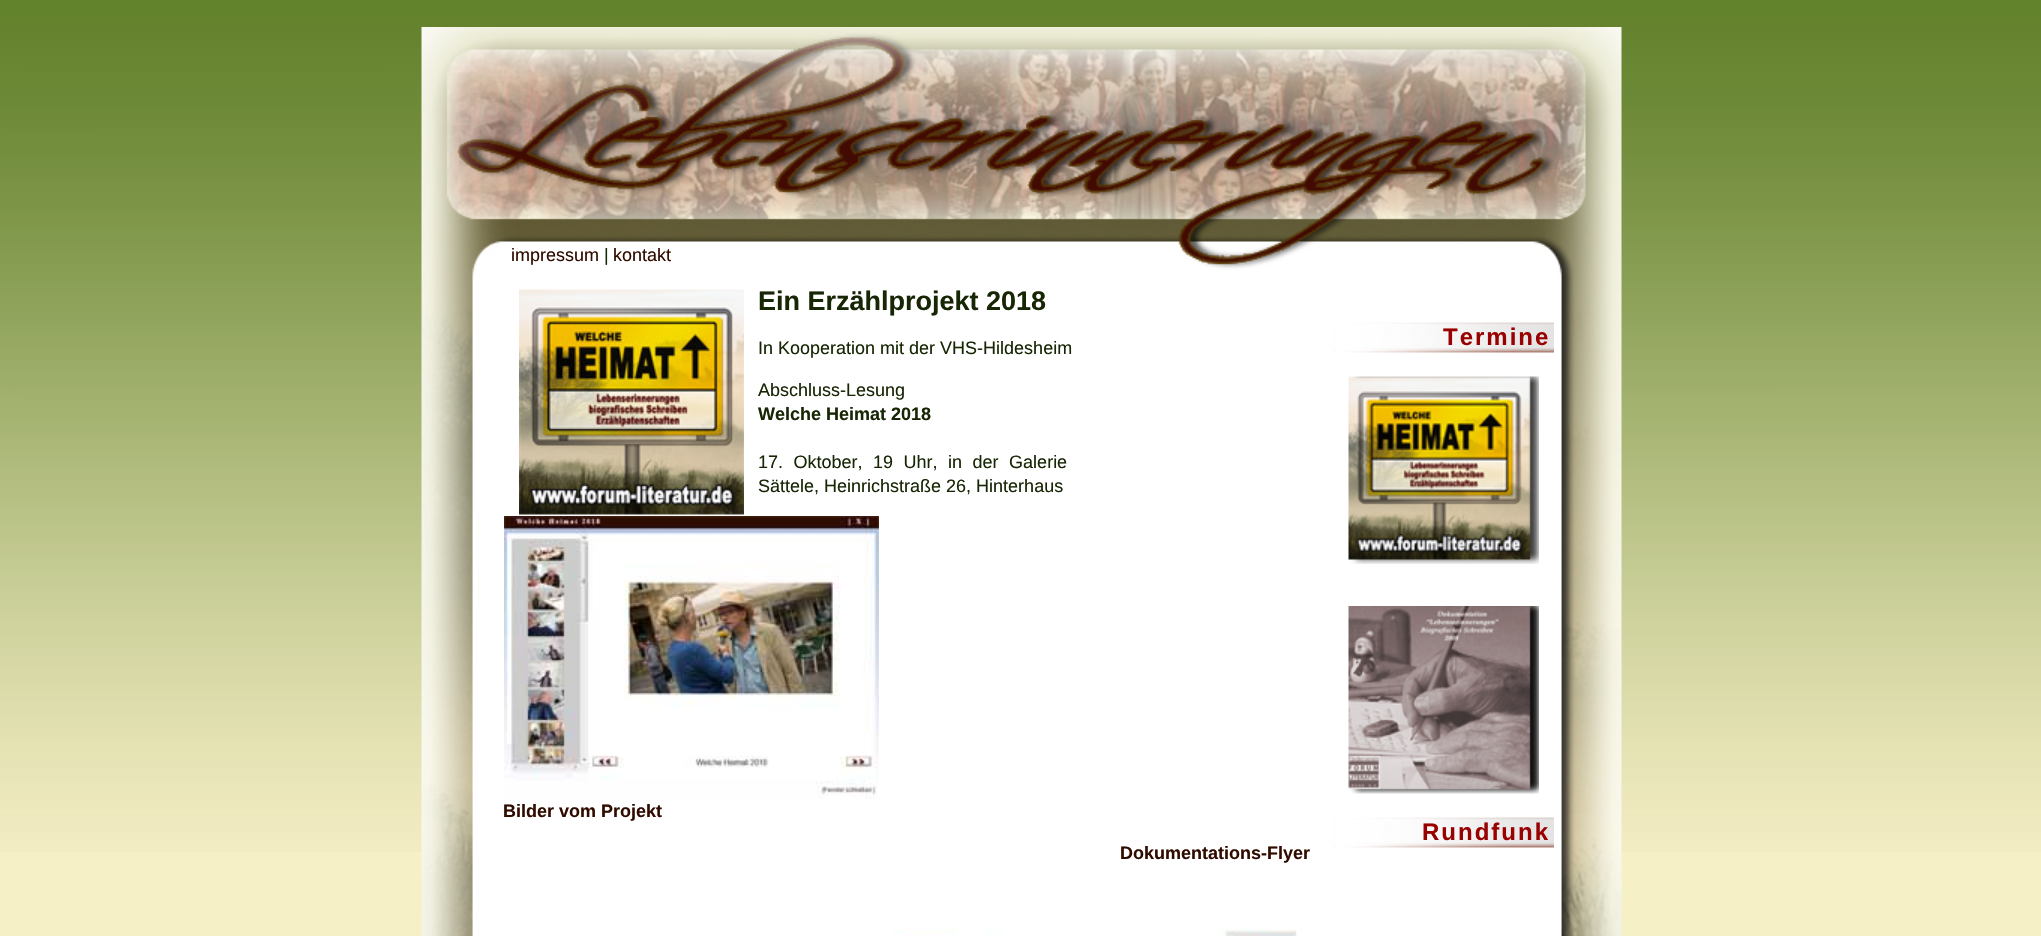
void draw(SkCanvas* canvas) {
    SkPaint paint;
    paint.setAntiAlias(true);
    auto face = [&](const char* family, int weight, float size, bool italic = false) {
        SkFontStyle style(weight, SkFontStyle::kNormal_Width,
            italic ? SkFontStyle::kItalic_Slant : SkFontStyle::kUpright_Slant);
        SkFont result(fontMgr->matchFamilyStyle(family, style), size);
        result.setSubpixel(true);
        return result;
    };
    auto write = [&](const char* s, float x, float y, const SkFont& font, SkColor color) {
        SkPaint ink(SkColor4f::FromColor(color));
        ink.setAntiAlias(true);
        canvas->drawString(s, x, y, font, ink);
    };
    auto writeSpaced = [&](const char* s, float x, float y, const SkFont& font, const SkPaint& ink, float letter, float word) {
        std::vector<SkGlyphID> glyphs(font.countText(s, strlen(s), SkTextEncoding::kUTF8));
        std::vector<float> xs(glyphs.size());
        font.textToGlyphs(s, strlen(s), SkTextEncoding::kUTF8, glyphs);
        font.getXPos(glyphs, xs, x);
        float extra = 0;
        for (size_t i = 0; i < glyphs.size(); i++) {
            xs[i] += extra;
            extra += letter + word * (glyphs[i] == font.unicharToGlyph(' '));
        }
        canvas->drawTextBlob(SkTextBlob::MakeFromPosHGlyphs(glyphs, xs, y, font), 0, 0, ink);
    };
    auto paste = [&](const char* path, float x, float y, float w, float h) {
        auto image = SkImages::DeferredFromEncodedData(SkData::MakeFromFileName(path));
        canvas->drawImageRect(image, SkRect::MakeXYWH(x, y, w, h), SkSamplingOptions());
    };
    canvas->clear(SkColorSetRGB(246, 240, 198));
    paste("pic1.png", 0, 0, 2041, 852);
    paste("pic2.png", 421, 27, 1201, 909);
    auto kFont1 = face("Liberation Sans", 400, 18);
    write("impressum", 511, 261, kFont1, SkColorSetRGB(48, 12, 0));
    write("|", 604, 261, kFont1, SkColorSetRGB(23, 38, 4));
    write("kontakt", 613, 261, kFont1, SkColorSetRGB(48, 12, 0));
    paste("pic3.png", 519, 289, 225, 226);
    auto kFont2 = face("Liberation Sans", 700, 27);
    write("Ein Erzählprojekt 2018", 758, 310, kFont2, SkColorSetRGB(23, 38, 4));
    write("In Kooperation mit der VHS-Hildesheim", 758, 354, kFont1, SkColorSetRGB(23, 38, 4));
    write("Abschluss-Lesung", 758, 396, kFont1, SkColorSetRGB(23, 38, 4));
    auto kFont3 = face("Liberation Sans", 700, 18);
    write("Welche Heimat 2018", 758, 420, kFont3, SkColorSetRGB(23, 38, 4));
    paint.setColor(SkColorSetRGB(23, 38, 4));
    writeSpaced("17. Oktober, 19 Uhr, in der Galerie", 758, 468, kFont1, paint, 0, 5.5f);
    write("Sättele, Heinrichstraße 26, Hinterhaus", 758, 492, kFont1, SkColorSetRGB(23, 38, 4));
    paste("pic4.png", 504, 516, 375, 283);
    write("Bilder vom Projekt", 503, 817, kFont3, SkColorSetRGB(48, 12, 0));
    write("Dokumentations-Flyer", 1120, 859, kFont3, SkColorSetRGB(48, 12, 0));
    paste("pic5.png", 1333, 322, 221, 31);
    auto kFont4 = face("Liberation Sans", 700, 24);
    paint.setColor(SkColorSetRGB(153, 0, 0));
    writeSpaced("Termine", 1443, 345, kFont4, paint, 2, 0);
    paste("pic6.png", 1348, 376, 191, 188);
    paste("pic7.png", 1348, 606, 191, 188);
    paste("pic5.png", 1333, 817, 221, 31);
    writeSpaced("Rundfunk", 1422, 840, kFont4, paint, 2, 0);
    paste("pic8.png", 893, 927, 404, 9);
}
